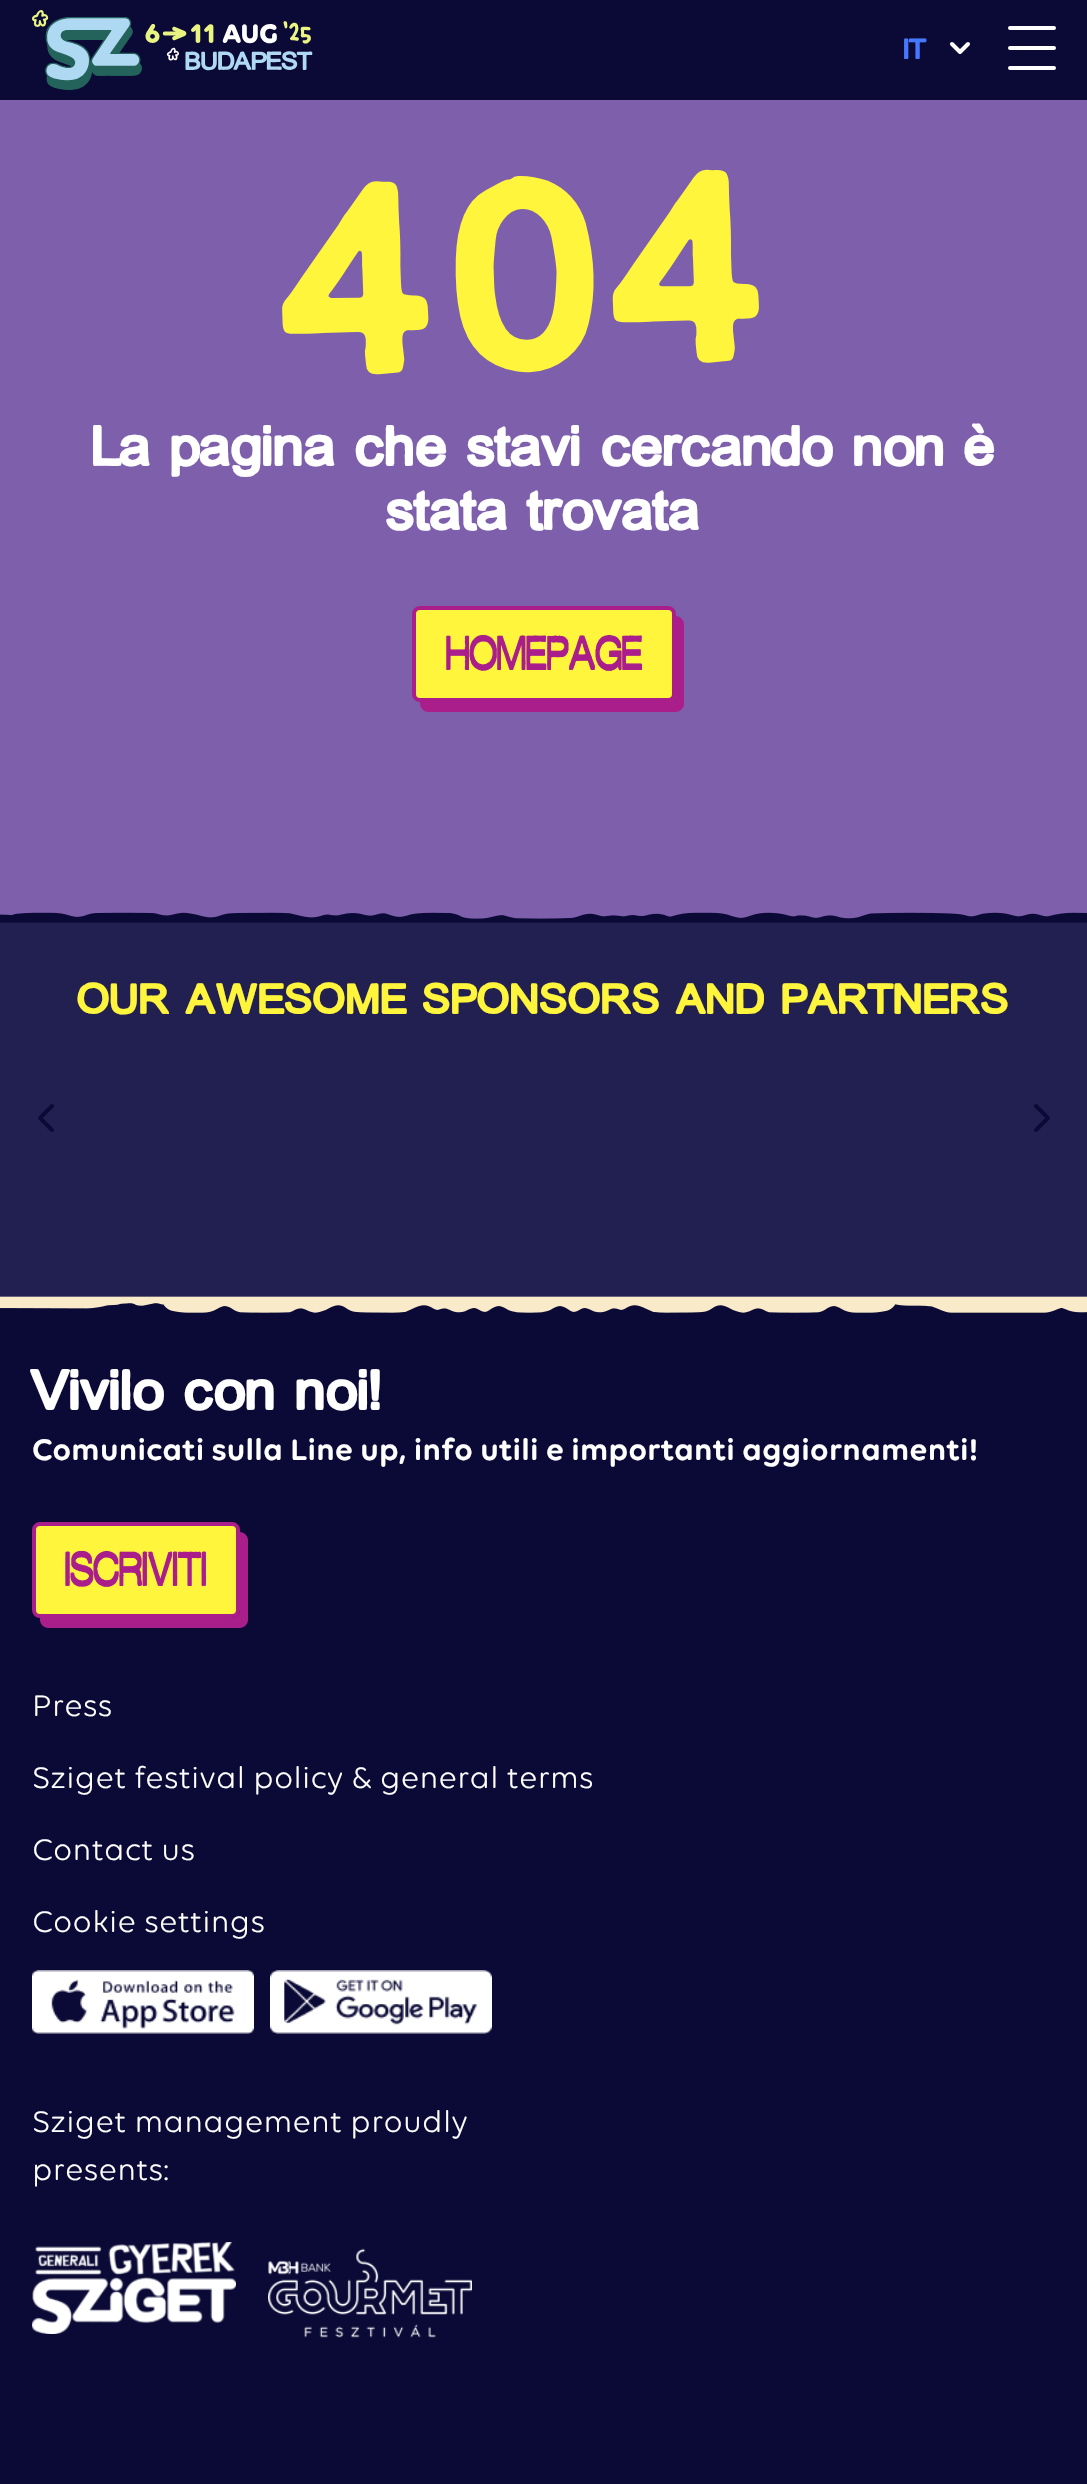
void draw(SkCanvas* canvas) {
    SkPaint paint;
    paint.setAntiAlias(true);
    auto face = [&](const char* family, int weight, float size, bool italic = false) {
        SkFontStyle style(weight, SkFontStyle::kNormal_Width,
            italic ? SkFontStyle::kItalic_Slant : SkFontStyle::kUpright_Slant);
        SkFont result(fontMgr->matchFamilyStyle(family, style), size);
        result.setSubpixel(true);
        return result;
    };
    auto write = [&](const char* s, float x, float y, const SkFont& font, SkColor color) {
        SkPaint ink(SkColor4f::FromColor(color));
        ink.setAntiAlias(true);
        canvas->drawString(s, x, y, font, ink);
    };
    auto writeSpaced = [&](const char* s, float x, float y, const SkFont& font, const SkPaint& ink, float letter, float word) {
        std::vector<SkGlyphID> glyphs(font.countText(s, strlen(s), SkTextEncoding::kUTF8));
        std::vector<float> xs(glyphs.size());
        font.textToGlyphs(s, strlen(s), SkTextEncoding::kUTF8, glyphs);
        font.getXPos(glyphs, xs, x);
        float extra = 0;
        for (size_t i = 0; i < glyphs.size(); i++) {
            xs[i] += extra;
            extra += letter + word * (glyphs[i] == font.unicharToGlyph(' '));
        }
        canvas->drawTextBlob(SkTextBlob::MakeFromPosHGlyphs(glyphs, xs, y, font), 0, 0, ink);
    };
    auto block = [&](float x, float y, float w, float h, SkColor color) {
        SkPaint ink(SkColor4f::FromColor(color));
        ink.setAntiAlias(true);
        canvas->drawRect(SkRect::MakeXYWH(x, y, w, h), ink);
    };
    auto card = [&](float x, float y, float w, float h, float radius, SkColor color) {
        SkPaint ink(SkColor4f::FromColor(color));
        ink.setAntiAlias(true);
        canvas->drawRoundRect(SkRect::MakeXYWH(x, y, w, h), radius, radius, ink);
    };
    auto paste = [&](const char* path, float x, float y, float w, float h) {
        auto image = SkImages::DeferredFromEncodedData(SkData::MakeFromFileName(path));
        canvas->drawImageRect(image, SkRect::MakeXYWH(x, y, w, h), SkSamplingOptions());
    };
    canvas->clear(SkColorSetRGB(126, 95, 171));
    block(0, 0, 1087, 100, SkColorSetRGB(11, 10, 54));
    paste("pic1.png", 32, 10, 281, 80);
    auto kFont1 = face("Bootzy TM", 400, 32);
    paint.setColor(SkColorSetRGB(70, 120, 255));
    writeSpaced("IT", 904, 59, kFont1, paint, 2, 0);
    paint.setStyle(SkPaint::kStroke_Style);
    paint.setStrokeWidth(4);
    paint.setStrokeCap(SkPaint::kRound_Cap);
    paint.setStrokeJoin(SkPaint::kRound_Join);
    paint.setColor(SK_ColorWHITE);
    canvas->drawPath(SkPathBuilder().moveTo(952, 44).lineTo(960, 52).lineTo(968, 44).detach(), paint);
    card(1008, 66, 48, 4, 2, SK_ColorWHITE);
    card(1008, 26, 48, 4, 2, SK_ColorWHITE);
    card(1008, 46, 48, 4, 2, SK_ColorWHITE);
    auto kFont2 = face("Bootzy TM", 400, 300);
    paint.setStyle(SkPaint::kFill_Style);
    paint.setColor(SkColorSetRGB(255, 245, 60));
    canvas->save();
    canvas->rotate(-2, 301, 377);
    writeSpaced("404", 301, 377, kFont2, paint, 40, 0);
    canvas->restore();
    auto kFont3 = face("Bootzy TM", 400, 64);
    paint.setColor(SK_ColorWHITE);
    writeSpaced("La pagina che stavi cercando non è", 93, 466, kFont3, paint, 3.2f, 0);
    writeSpaced("stata trovata", 387, 530, kFont3, paint, 3.2f, 0);
    paint.setColor(SkColorSetRGB(170, 30, 140));
    canvas->drawPath(SkPathBuilder().moveTo(420, 702).lineTo(420, 704).cubicTo(420, 708, 424, 712, 428, 712).lineTo(676, 712).cubicTo(680, 712, 684, 708, 684, 704).lineTo(684, 624).cubicTo(684, 620, 680, 616, 676, 616).lineTo(676, 694).cubicTo(676, 698, 672, 702, 668, 702).close().detach(), paint);
    paint.setColor(SkColorSetRGB(255, 245, 60));
    canvas->drawRoundRect(SkRect::MakeXYWH(414, 608, 260, 92), 6, 6, paint);
    paint.setStyle(SkPaint::kStroke_Style);
    paint.setStrokeCap(SkPaint::kButt_Cap);
    paint.setStrokeJoin(SkPaint::kMiter_Join);
    paint.setColor(SkColorSetRGB(170, 30, 140));
    canvas->drawRoundRect(SkRect::MakeXYWH(414, 608, 260, 92), 6, 6, paint);
    auto kFont4 = face("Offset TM", 400, 48);
    write("HOMEPAGE", 446, 670, kFont4, SkColorSetRGB(170, 30, 140));
    block(0, 922, 1087, 375, SkColorSetRGB(34, 32, 81));
    paste("pic2.png", 0, 912, 1087, 11);
    auto kFont5 = face("Bootzy TM", 400, 48);
    paint.setStyle(SkPaint::kFill_Style);
    paint.setColor(SkColorSetRGB(255, 245, 60));
    writeSpaced("OUR AWESOME SPONSORS AND PARTNERS", 78, 1014, kFont5, paint, 3.2f, 0);
    paint.setStyle(SkPaint::kStroke_Style);
    paint.setStrokeCap(SkPaint::kRound_Cap);
    paint.setStrokeJoin(SkPaint::kRound_Join);
    paint.setColor(SkColorSetRGB(11, 10, 54));
    canvas->drawPath(SkPathBuilder().moveTo(52, 1130).lineTo(40, 1118).lineTo(52, 1106).detach(), paint);
    canvas->drawPath(SkPathBuilder().moveTo(1036, 1106).lineTo(1048, 1118).lineTo(1036, 1130).detach(), paint);
    block(0, 1303, 1087, 1181, SkColorSetRGB(11, 10, 54));
    paste("pic3.png", 0, 1296, 1087, 17);
    paint.setStyle(SkPaint::kFill_Style);
    paint.setColor(SK_ColorWHITE);
    writeSpaced("Vivilo con noi!", 32, 1410, kFont3, paint, 3.2f, 0);
    auto kFont6 = face("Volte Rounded", 600, 32);
    writeSpaced("Comunicati sulla Line up, info utili e importanti aggiornamenti!", 32, 1460, kFont6, paint, 0.32f, 0);
    paint.setColor(SkColorSetRGB(170, 30, 140));
    canvas->drawPath(SkPathBuilder().moveTo(40, 1618).lineTo(40, 1620).cubicTo(40, 1624, 44, 1628, 48, 1628).lineTo(240, 1628).cubicTo(244, 1628, 248, 1624, 248, 1620).lineTo(248, 1540).cubicTo(248, 1536, 244, 1532, 240, 1532).lineTo(240, 1610).cubicTo(240, 1614, 236, 1618, 232, 1618).close().detach(), paint);
    paint.setColor(SkColorSetRGB(255, 245, 60));
    canvas->drawRoundRect(SkRect::MakeXYWH(34, 1524, 204, 92), 6, 6, paint);
    paint.setStyle(SkPaint::kStroke_Style);
    paint.setStrokeCap(SkPaint::kButt_Cap);
    paint.setStrokeJoin(SkPaint::kMiter_Join);
    paint.setColor(SkColorSetRGB(170, 30, 140));
    canvas->drawRoundRect(SkRect::MakeXYWH(34, 1524, 204, 92), 6, 6, paint);
    write("ISCRIVITI", 65, 1586, kFont4, SkColorSetRGB(170, 30, 140));
    auto kFont7 = face("Volte Rounded", 400, 32);
    paint.setStyle(SkPaint::kFill_Style);
    paint.setColor(SK_ColorWHITE);
    writeSpaced("Press", 32, 1716, kFont7, paint, 0.32f, 0);
    writeSpaced("Sziget festival policy & general terms", 32, 1788, kFont7, paint, 0.32f, 0);
    writeSpaced("Contact us", 32, 1860, kFont7, paint, 0.32f, 0);
    writeSpaced("Cookie settings", 32, 1932, kFont7, paint, 0.32f, 0);
    paste("pic4.png", 32, 1970, 222, 64);
    paste("pic5.png", 270, 1970, 222, 64);
    writeSpaced("Sziget management proudly", 32, 2132, kFont7, paint, 0.32f, 0);
    writeSpaced("presents:", 32, 2180, kFont7, paint, 0.32f, 0);
    paste("pic6.png", 32, 2242, 204, 92);
    paste("pic7.png", 268, 2248, 204, 90);
}
